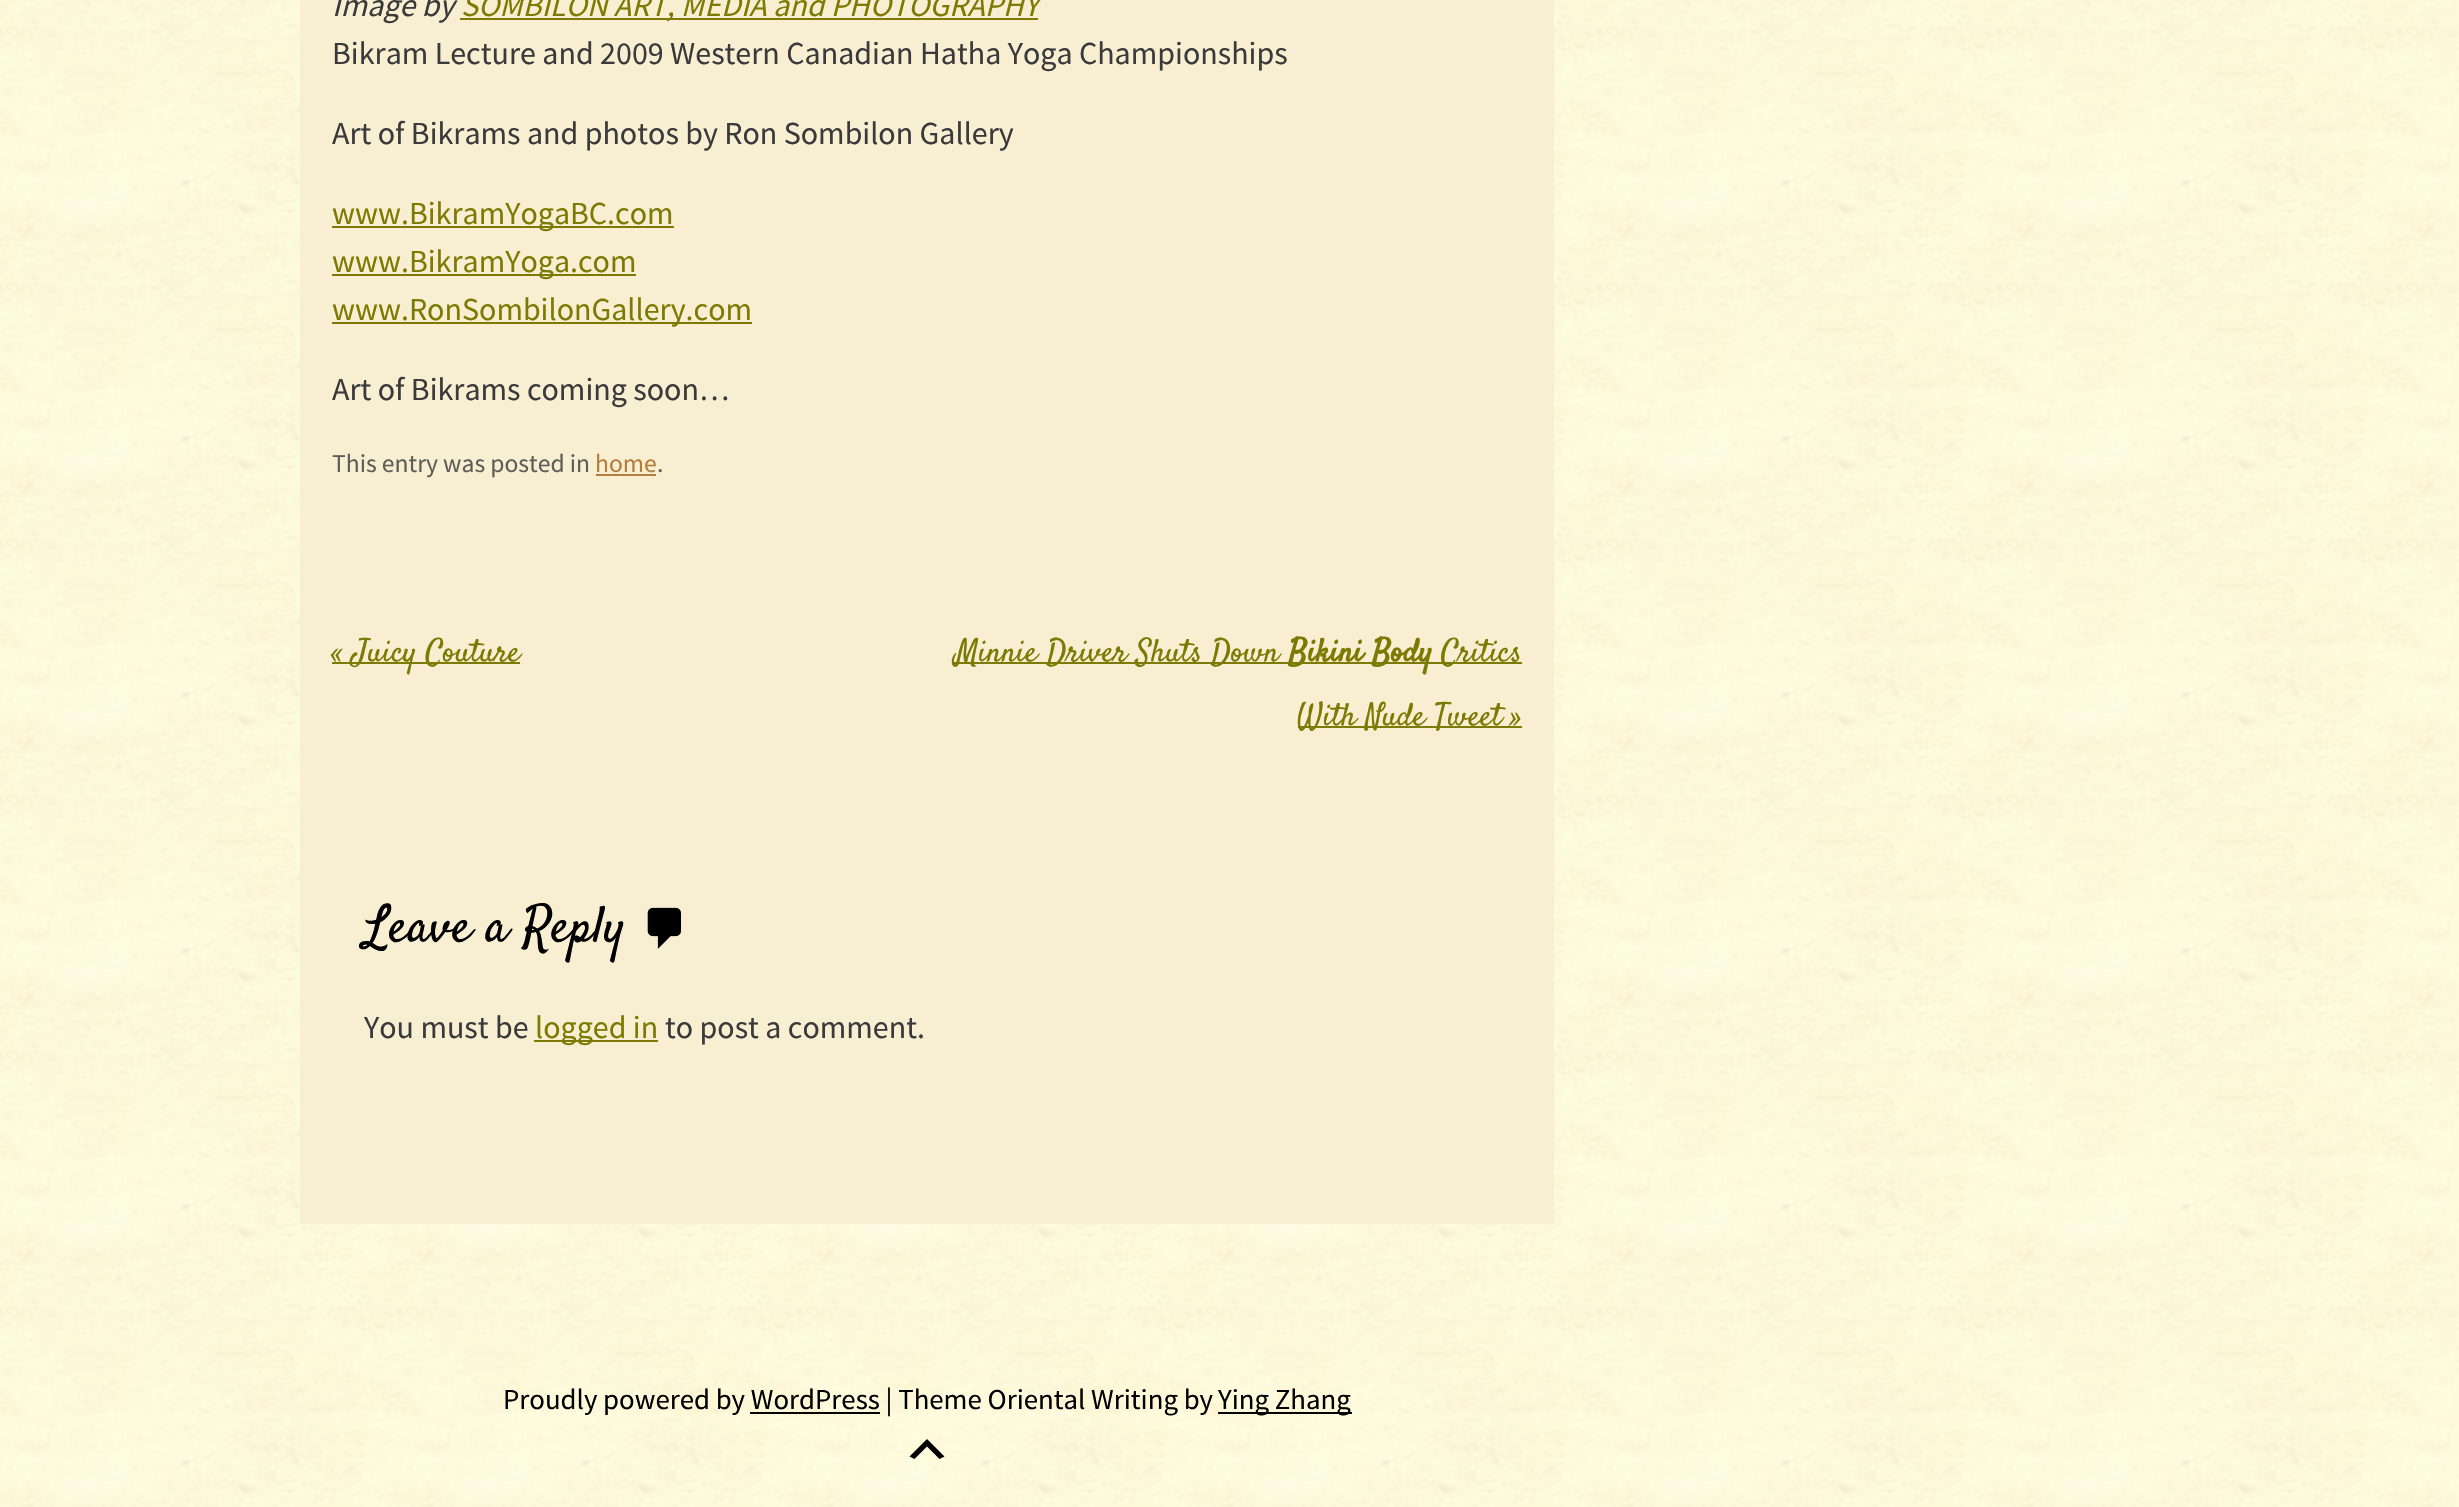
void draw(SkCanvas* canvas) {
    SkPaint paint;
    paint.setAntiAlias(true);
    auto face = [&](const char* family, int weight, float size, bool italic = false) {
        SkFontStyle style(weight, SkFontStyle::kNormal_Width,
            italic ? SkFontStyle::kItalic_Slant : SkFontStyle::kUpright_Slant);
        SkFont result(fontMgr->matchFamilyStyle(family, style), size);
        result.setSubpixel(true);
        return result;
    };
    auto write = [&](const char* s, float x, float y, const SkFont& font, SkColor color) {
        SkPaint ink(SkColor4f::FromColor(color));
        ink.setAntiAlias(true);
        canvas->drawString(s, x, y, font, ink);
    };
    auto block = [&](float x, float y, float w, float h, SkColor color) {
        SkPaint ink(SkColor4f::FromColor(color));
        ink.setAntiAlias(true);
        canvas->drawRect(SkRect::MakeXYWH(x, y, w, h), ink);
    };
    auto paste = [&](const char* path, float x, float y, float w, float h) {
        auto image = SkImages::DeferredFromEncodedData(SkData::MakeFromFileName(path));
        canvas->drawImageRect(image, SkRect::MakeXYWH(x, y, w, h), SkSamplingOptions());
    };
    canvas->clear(SK_ColorWHITE);
    paste("pic1.png", 0, 0, 2459, 1507);
    block(300, 0, 1254, 1224, SkColorSetRGB(248, 239, 211));
    auto kFont1 = face("Source Sans Pro", 400, 32, true);
    write("Image by", 332, 16, kFont1, SkColorSetRGB(58, 58, 58));
    block(460, 18, 578, 2, SkColorSetRGB(124, 122, 2));
    write("SOMBILON ART, MEDIA and PHOTOGRAPHY", 461, 16, kFont1, SkColorSetRGB(124, 122, 2));
    auto kFont2 = face("Source Sans Pro", 400, 32);
    write("Bikram Lecture and 2009 Western Canadian Hatha Yoga Championships", 332, 64, kFont2, SkColorSetRGB(58, 58, 58));
    write("Art of Bikrams and photos by Ron Sombilon Gallery", 332, 144, kFont2, SkColorSetRGB(58, 58, 58));
    block(332, 226, 342, 2, SkColorSetRGB(124, 122, 2));
    write("www.BikramYogaBC.com", 332, 224, kFont2, SkColorSetRGB(124, 122, 2));
    block(332, 274, 304, 2, SkColorSetRGB(124, 122, 2));
    write("www.BikramYoga.com", 332, 272, kFont2, SkColorSetRGB(124, 122, 2));
    block(332, 322, 420, 2, SkColorSetRGB(124, 122, 2));
    write("www.RonSombilonGallery.com", 332, 320, kFont2, SkColorSetRGB(124, 122, 2));
    write("Art of Bikrams coming soon…", 332, 400, kFont2, SkColorSetRGB(58, 58, 58));
    auto kFont3 = face("Source Sans Pro", 400, 25.6f);
    write("This entry was posted in", 332, 472, kFont3, SkColorSetRGB(94, 92, 87));
    write("home", 595, 472, kFont3, SkColorSetRGB(181, 124, 59));
    block(596, 474, 60, 2, SkColorSetRGB(181, 124, 59));
    write(".", 657, 472, kFont3, SkColorSetRGB(94, 92, 87));
    block(332, 662, 188, 2, SkColorSetRGB(124, 122, 2));
    auto kFont4 = face("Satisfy", 400, 32);
    write("« Juicy Couture", 332, 661, kFont4, SkColorSetRGB(124, 122, 2));
    block(954, 662, 568, 2, SkColorSetRGB(124, 122, 2));
    write("Minnie Driver Shuts Down", 955, 661, kFont4, SkColorSetRGB(124, 122, 2));
    auto kFont5 = face("Satisfy", 700, 32);
    write("Bikini Body", 1288, 661, kFont5, SkColorSetRGB(124, 122, 2));
    write("Critics", 1441, 661, kFont4, SkColorSetRGB(124, 122, 2));
    block(1298, 726, 224, 2, SkColorSetRGB(124, 122, 2));
    write("With Nude Tweet »", 1297, 725, kFont4, SkColorSetRGB(124, 122, 2));
    auto kFont6 = face("Satisfy", 400, 51.25f);
    write("Leave a Reply", 364, 941, kFont6, SK_ColorBLACK);
    paste("pic2.png", 647, 907, 34, 42);
    write("You must be", 364, 1038, kFont2, SkColorSetRGB(58, 58, 58));
    block(534, 1040, 124, 2, SkColorSetRGB(124, 122, 2));
    write("logged in", 535, 1038, kFont2, SkColorSetRGB(124, 122, 2));
    write("to post a comment.", 665, 1038, kFont2, SkColorSetRGB(58, 58, 58));
    auto kFont7 = face("Source Sans Pro", 400, 28.8f);
    write("Proudly powered by WordPress | Theme Oriental Writing by", 503, 1409, kFont7, SK_ColorBLACK);
    block(1218, 1412, 134, 2, SK_ColorBLACK);
    write("Ying Zhang", 1218, 1409, kFont7, SK_ColorBLACK);
    block(750, 1412, 130, 2, SK_ColorBLACK);
    paint.setColor(SK_ColorBLACK);
    canvas->drawPath(SkPathBuilder().moveTo(939.5f, 1459).lineTo(927, 1446.5f).lineTo(914.5f, 1459).lineTo(909.5f, 1456.5f).lineTo(927, 1439).lineTo(944.5f, 1456.5f).close().detach(), paint);
}
